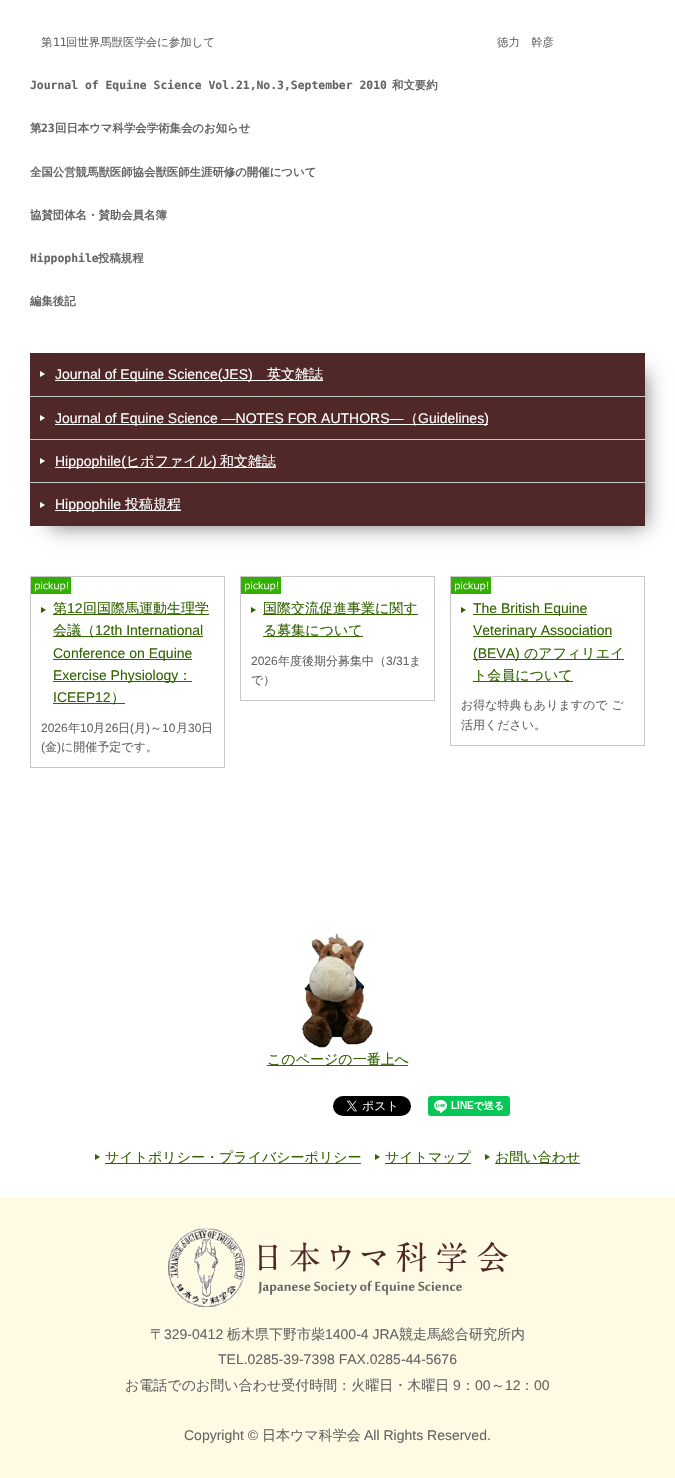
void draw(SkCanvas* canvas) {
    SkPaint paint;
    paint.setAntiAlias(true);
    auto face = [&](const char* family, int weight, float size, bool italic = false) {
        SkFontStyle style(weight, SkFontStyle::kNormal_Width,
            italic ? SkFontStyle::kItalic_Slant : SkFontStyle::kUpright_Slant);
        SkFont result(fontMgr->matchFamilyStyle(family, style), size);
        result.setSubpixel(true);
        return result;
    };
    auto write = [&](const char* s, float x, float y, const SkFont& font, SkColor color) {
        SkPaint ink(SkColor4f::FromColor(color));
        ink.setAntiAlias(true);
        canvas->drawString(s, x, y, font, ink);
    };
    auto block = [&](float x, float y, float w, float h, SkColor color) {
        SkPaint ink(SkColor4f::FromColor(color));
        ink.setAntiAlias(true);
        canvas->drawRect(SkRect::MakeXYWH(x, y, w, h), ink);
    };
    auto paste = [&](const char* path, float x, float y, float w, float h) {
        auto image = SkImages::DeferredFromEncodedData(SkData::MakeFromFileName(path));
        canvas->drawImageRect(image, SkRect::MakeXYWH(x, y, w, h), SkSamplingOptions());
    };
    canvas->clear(SK_ColorWHITE);
    auto kFont1 = face("WenQuanYi Zen Hei", 500, 11.4f);
    write("第", 41, 46, kFont1, SkColorSetRGB(100, 100, 100));
    auto kFont2 = face("DejaVu Sans Mono", 400, 11.4f);
    write("11", 53, 46, kFont2, SkColorSetRGB(100, 100, 100));
    write("回世界馬獣医学会に参加して", 66, 46, kFont1, SkColorSetRGB(100, 100, 100));
    write("徳力　幹彦", 497, 46, kFont1, SkColorSetRGB(100, 100, 100));
    auto kFont3 = face("DejaVu Sans Mono", 700, 11.4f);
    write("Journal of Equine Science Vol.21,No.3,September 2010", 30, 89, kFont3, SkColorSetRGB(100, 100, 100));
    auto kFont4 = face("WenQuanYi Zen Hei", 700, 11.4f);
    write("和文要約", 392, 89, kFont4, SkColorSetRGB(100, 100, 100));
    write("第", 30, 132, kFont4, SkColorSetRGB(100, 100, 100));
    write("23", 41, 132, kFont3, SkColorSetRGB(100, 100, 100));
    write("回日本ウマ科学会学術集会のお知らせ", 55, 132, kFont4, SkColorSetRGB(100, 100, 100));
    write("全国公営競馬獣医師協会獣医師生涯研修の開催について", 30, 176, kFont4, SkColorSetRGB(100, 100, 100));
    write("協賛団体名・賛助会員名簿", 30, 219, kFont4, SkColorSetRGB(100, 100, 100));
    write("Hippophile", 30, 262, kFont3, SkColorSetRGB(100, 100, 100));
    write("投稿規程", 98, 262, kFont4, SkColorSetRGB(100, 100, 100));
    write("編集後記", 30, 305, kFont4, SkColorSetRGB(100, 100, 100));
    paint.setColor(SkColorSetRGB(119, 119, 119));
    paint.setMaskFilter(SkMaskFilter::MakeBlur(kNormal_SkBlurStyle, 10));
    canvas->drawRect(SkRect::MakeXYWH(50, 373, 595, 153), paint);
    paint.setMaskFilter(nullptr);
    block(30, 353, 615, 43, SkColorSetRGB(80, 40, 40));
    paste("pic1.png", 40, 371, 5, 6);
    block(55, 380, 268, 1, SK_ColorWHITE);
    auto kFont5 = face("Liberation Sans", 400, 14);
    write("Journal of Equine Science(JES)", 55, 379, kFont5, SK_ColorWHITE);
    auto kFont6 = face("WenQuanYi Zen Hei", 500, 14);
    write("英文雑誌", 267, 379, kFont6, SK_ColorWHITE);
    block(30, 396, 615, 1, SkColorSetRGB(200, 200, 200));
    block(30, 397, 615, 42, SkColorSetRGB(80, 40, 40));
    paste("pic1.png", 40, 415, 5, 6);
    block(55, 424, 433, 1, SK_ColorWHITE);
    write("Journal of Equine Science —NOTES FOR AUTHORS—", 55, 423, kFont5, SK_ColorWHITE);
    write("（", 404, 423, kFont6, SK_ColorWHITE);
    write("Guidelines)", 418, 423, kFont5, SK_ColorWHITE);
    block(30, 439, 615, 1, SkColorSetRGB(200, 200, 200));
    block(30, 440, 615, 42, SkColorSetRGB(80, 40, 40));
    paste("pic1.png", 40, 458, 5, 6);
    block(55, 467, 221, 1, SK_ColorWHITE);
    write("Hippophile(", 55, 466, kFont5, SK_ColorWHITE);
    write("ヒポファイル", 126, 466, kFont6, SK_ColorWHITE);
    write(")", 212, 466, kFont5, SK_ColorWHITE);
    write("和文雑誌", 220, 466, kFont6, SK_ColorWHITE);
    block(30, 482, 615, 1, SkColorSetRGB(200, 200, 200));
    block(30, 483, 615, 43, SkColorSetRGB(80, 40, 40));
    paste("pic1.png", 40, 502, 5, 6);
    block(55, 510, 126, 1, SK_ColorWHITE);
    write("Hippophile", 55, 509, kFont5, SK_ColorWHITE);
    write("投稿規程", 125, 509, kFont6, SK_ColorWHITE);
    paint.setStyle(SkPaint::kStroke_Style);
    paint.setStrokeWidth(1);
    paint.setColor(SkColorSetRGB(200, 200, 200));
    canvas->drawRect(SkRect::MakeXYWH(30.5f, 576.5f, 194, 191), paint);
    paste("pic2.png", 31, 577, 40, 17);
    paste("pic3.png", 41, 607, 5, 6);
    block(53, 614, 156, 1, SkColorSetRGB(50, 100, 0));
    write("第", 53, 613, kFont6, SkColorSetRGB(50, 100, 0));
    write("12", 67, 613, kFont5, SkColorSetRGB(50, 100, 0));
    write("回国際馬運動生理学", 83, 613, kFont6, SkColorSetRGB(50, 100, 0));
    block(53, 636, 150, 1, SkColorSetRGB(50, 100, 0));
    write("会議（", 53, 635, kFont6, SkColorSetRGB(50, 100, 0));
    write("12th International", 95, 635, kFont5, SkColorSetRGB(50, 100, 0));
    block(53, 659, 139, 1, SkColorSetRGB(50, 100, 0));
    write("Conference on Equine", 53, 658, kFont5, SkColorSetRGB(50, 100, 0));
    block(53, 681, 139, 1, SkColorSetRGB(50, 100, 0));
    write("Exercise Physiology", 53, 680, kFont5, SkColorSetRGB(50, 100, 0));
    write("：", 178, 680, kFont6, SkColorSetRGB(50, 100, 0));
    write("ICEEP12", 53, 702, kFont5, SkColorSetRGB(50, 100, 0));
    block(53, 703, 72, 1, SkColorSetRGB(50, 100, 0));
    write("）", 111, 702, kFont6, SkColorSetRGB(50, 100, 0));
    auto kFont7 = face("Liberation Sans", 400, 12);
    write("2026", 41, 732, kFont7, SkColorSetRGB(100, 100, 100));
    auto kFont8 = face("WenQuanYi Zen Hei", 500, 12);
    write("年", 68, 732, kFont8, SkColorSetRGB(100, 100, 100));
    write("10", 80, 732, kFont7, SkColorSetRGB(100, 100, 100));
    write("月", 93, 732, kFont8, SkColorSetRGB(100, 100, 100));
    write("26", 105, 732, kFont7, SkColorSetRGB(100, 100, 100));
    write("日", 118, 732, kFont8, SkColorSetRGB(100, 100, 100));
    write("(", 130, 732, kFont7, SkColorSetRGB(100, 100, 100));
    write("月", 134, 732, kFont8, SkColorSetRGB(100, 100, 100));
    write(")", 146, 732, kFont7, SkColorSetRGB(100, 100, 100));
    write("～", 150, 732, kFont8, SkColorSetRGB(100, 100, 100));
    write("10", 162, 732, kFont7, SkColorSetRGB(100, 100, 100));
    write("月", 176, 732, kFont8, SkColorSetRGB(100, 100, 100));
    write("30", 188, 732, kFont7, SkColorSetRGB(100, 100, 100));
    write("日", 201, 732, kFont8, SkColorSetRGB(100, 100, 100));
    write("(", 41, 751, kFont7, SkColorSetRGB(100, 100, 100));
    write("金", 45, 751, kFont8, SkColorSetRGB(100, 100, 100));
    write(")", 57, 751, kFont7, SkColorSetRGB(100, 100, 100));
    write("に開催予定です。", 61, 751, kFont8, SkColorSetRGB(100, 100, 100));
    canvas->drawRect(SkRect::MakeXYWH(240.5f, 576.5f, 194, 124), paint);
    paste("pic2.png", 241, 577, 40, 17);
    paste("pic3.png", 251, 607, 5, 6);
    block(263, 614, 155, 1, SkColorSetRGB(50, 100, 0));
    write("国際交流促進事業に関す", 263, 613, kFont6, SkColorSetRGB(50, 100, 0));
    block(263, 636, 100, 1, SkColorSetRGB(50, 100, 0));
    write("る募集について", 263, 635, kFont6, SkColorSetRGB(50, 100, 0));
    write("2026", 251, 665, kFont7, SkColorSetRGB(100, 100, 100));
    write("年度後期分募集中（", 278, 665, kFont8, SkColorSetRGB(100, 100, 100));
    write("3/31", 386, 665, kFont7, SkColorSetRGB(100, 100, 100));
    write("ま", 409, 665, kFont8, SkColorSetRGB(100, 100, 100));
    write("で）", 251, 684, kFont8, SkColorSetRGB(100, 100, 100));
    canvas->drawRect(SkRect::MakeXYWH(450.5f, 576.5f, 194, 169), paint);
    paste("pic2.png", 451, 577, 40, 17);
    paste("pic3.png", 461, 607, 5, 6);
    block(473, 614, 114, 1, SkColorSetRGB(50, 100, 0));
    write("The British Equine", 473, 613, kFont5, SkColorSetRGB(50, 100, 0));
    block(473, 636, 139, 1, SkColorSetRGB(50, 100, 0));
    write("Veterinary Association", 473, 635, kFont5, SkColorSetRGB(50, 100, 0));
    block(473, 659, 151, 1, SkColorSetRGB(50, 100, 0));
    write("(BEVA)", 473, 658, kFont5, SkColorSetRGB(50, 100, 0));
    write("のアフィリエイ", 524, 658, kFont6, SkColorSetRGB(50, 100, 0));
    block(473, 681, 100, 1, SkColorSetRGB(50, 100, 0));
    write("ト会員について", 473, 680, kFont6, SkColorSetRGB(50, 100, 0));
    write("お得な特典もありますので ご", 461, 709, kFont8, SkColorSetRGB(100, 100, 100));
    write("活用ください。", 461, 729, kFont8, SkColorSetRGB(100, 100, 100));
    paste("pic4.png", 302, 933, 71, 115);
    block(267, 1065, 141, 1, SkColorSetRGB(50, 100, 0));
    write("このページの一番上へ", 267, 1064, kFont6, SkColorSetRGB(50, 100, 0));
    paste("pic5.png", 333, 1096, 78, 20);
    paste("pic6.png", 428, 1096, 82, 20);
    paste("pic3.png", 95, 1154, 5, 6);
    block(105, 1163, 256, 1, SkColorSetRGB(50, 100, 0));
    write("サイトポリシー・プライバシーポリシー", 105, 1162, kFont6, SkColorSetRGB(50, 100, 0));
    paste("pic3.png", 375, 1154, 5, 6);
    block(385, 1163, 86, 1, SkColorSetRGB(50, 100, 0));
    write("サイトマップ", 385, 1162, kFont6, SkColorSetRGB(50, 100, 0));
    paste("pic3.png", 485, 1154, 5, 6);
    block(495, 1163, 85, 1, SkColorSetRGB(50, 100, 0));
    write("お問い合わせ", 495, 1162, kFont6, SkColorSetRGB(50, 100, 0));
    block(0, 1198, 675, 280, SkColorSetRGB(255, 250, 227));
    paste("pic7.png", 168, 1228, 340, 79);
    write("〒", 150, 1339, kFont6, SkColorSetRGB(100, 100, 100));
    write("329-0412", 164, 1339, kFont5, SkColorSetRGB(100, 100, 100));
    write("栃木県下野市柴", 227, 1339, kFont6, SkColorSetRGB(100, 100, 100));
    write("1400-4 JRA", 325, 1339, kFont5, SkColorSetRGB(100, 100, 100));
    write("競走馬総合研究所内", 399, 1339, kFont6, SkColorSetRGB(100, 100, 100));
    write("TEL.0285-39-7398 FAX.0285-44-5676", 218, 1364, kFont5, SkColorSetRGB(100, 100, 100));
    write("お電話でのお問い合わせ受付時間：火曜日・木曜日", 125, 1390, kFont6, SkColorSetRGB(100, 100, 100));
    write("9", 453, 1390, kFont5, SkColorSetRGB(100, 100, 100));
    write("：", 461, 1390, kFont6, SkColorSetRGB(100, 100, 100));
    write("00", 475, 1390, kFont5, SkColorSetRGB(100, 100, 100));
    write("～", 491, 1390, kFont6, SkColorSetRGB(100, 100, 100));
    write("12", 505, 1390, kFont5, SkColorSetRGB(100, 100, 100));
    write("：", 520, 1390, kFont6, SkColorSetRGB(100, 100, 100));
    write("00", 534, 1390, kFont5, SkColorSetRGB(100, 100, 100));
    write("Copyright ©", 184, 1440, kFont5, SkColorSetRGB(100, 100, 100));
    write("日本ウマ科学会", 262, 1440, kFont6, SkColorSetRGB(100, 100, 100));
    write("All Rights Reserved.", 364, 1440, kFont5, SkColorSetRGB(100, 100, 100));
}
